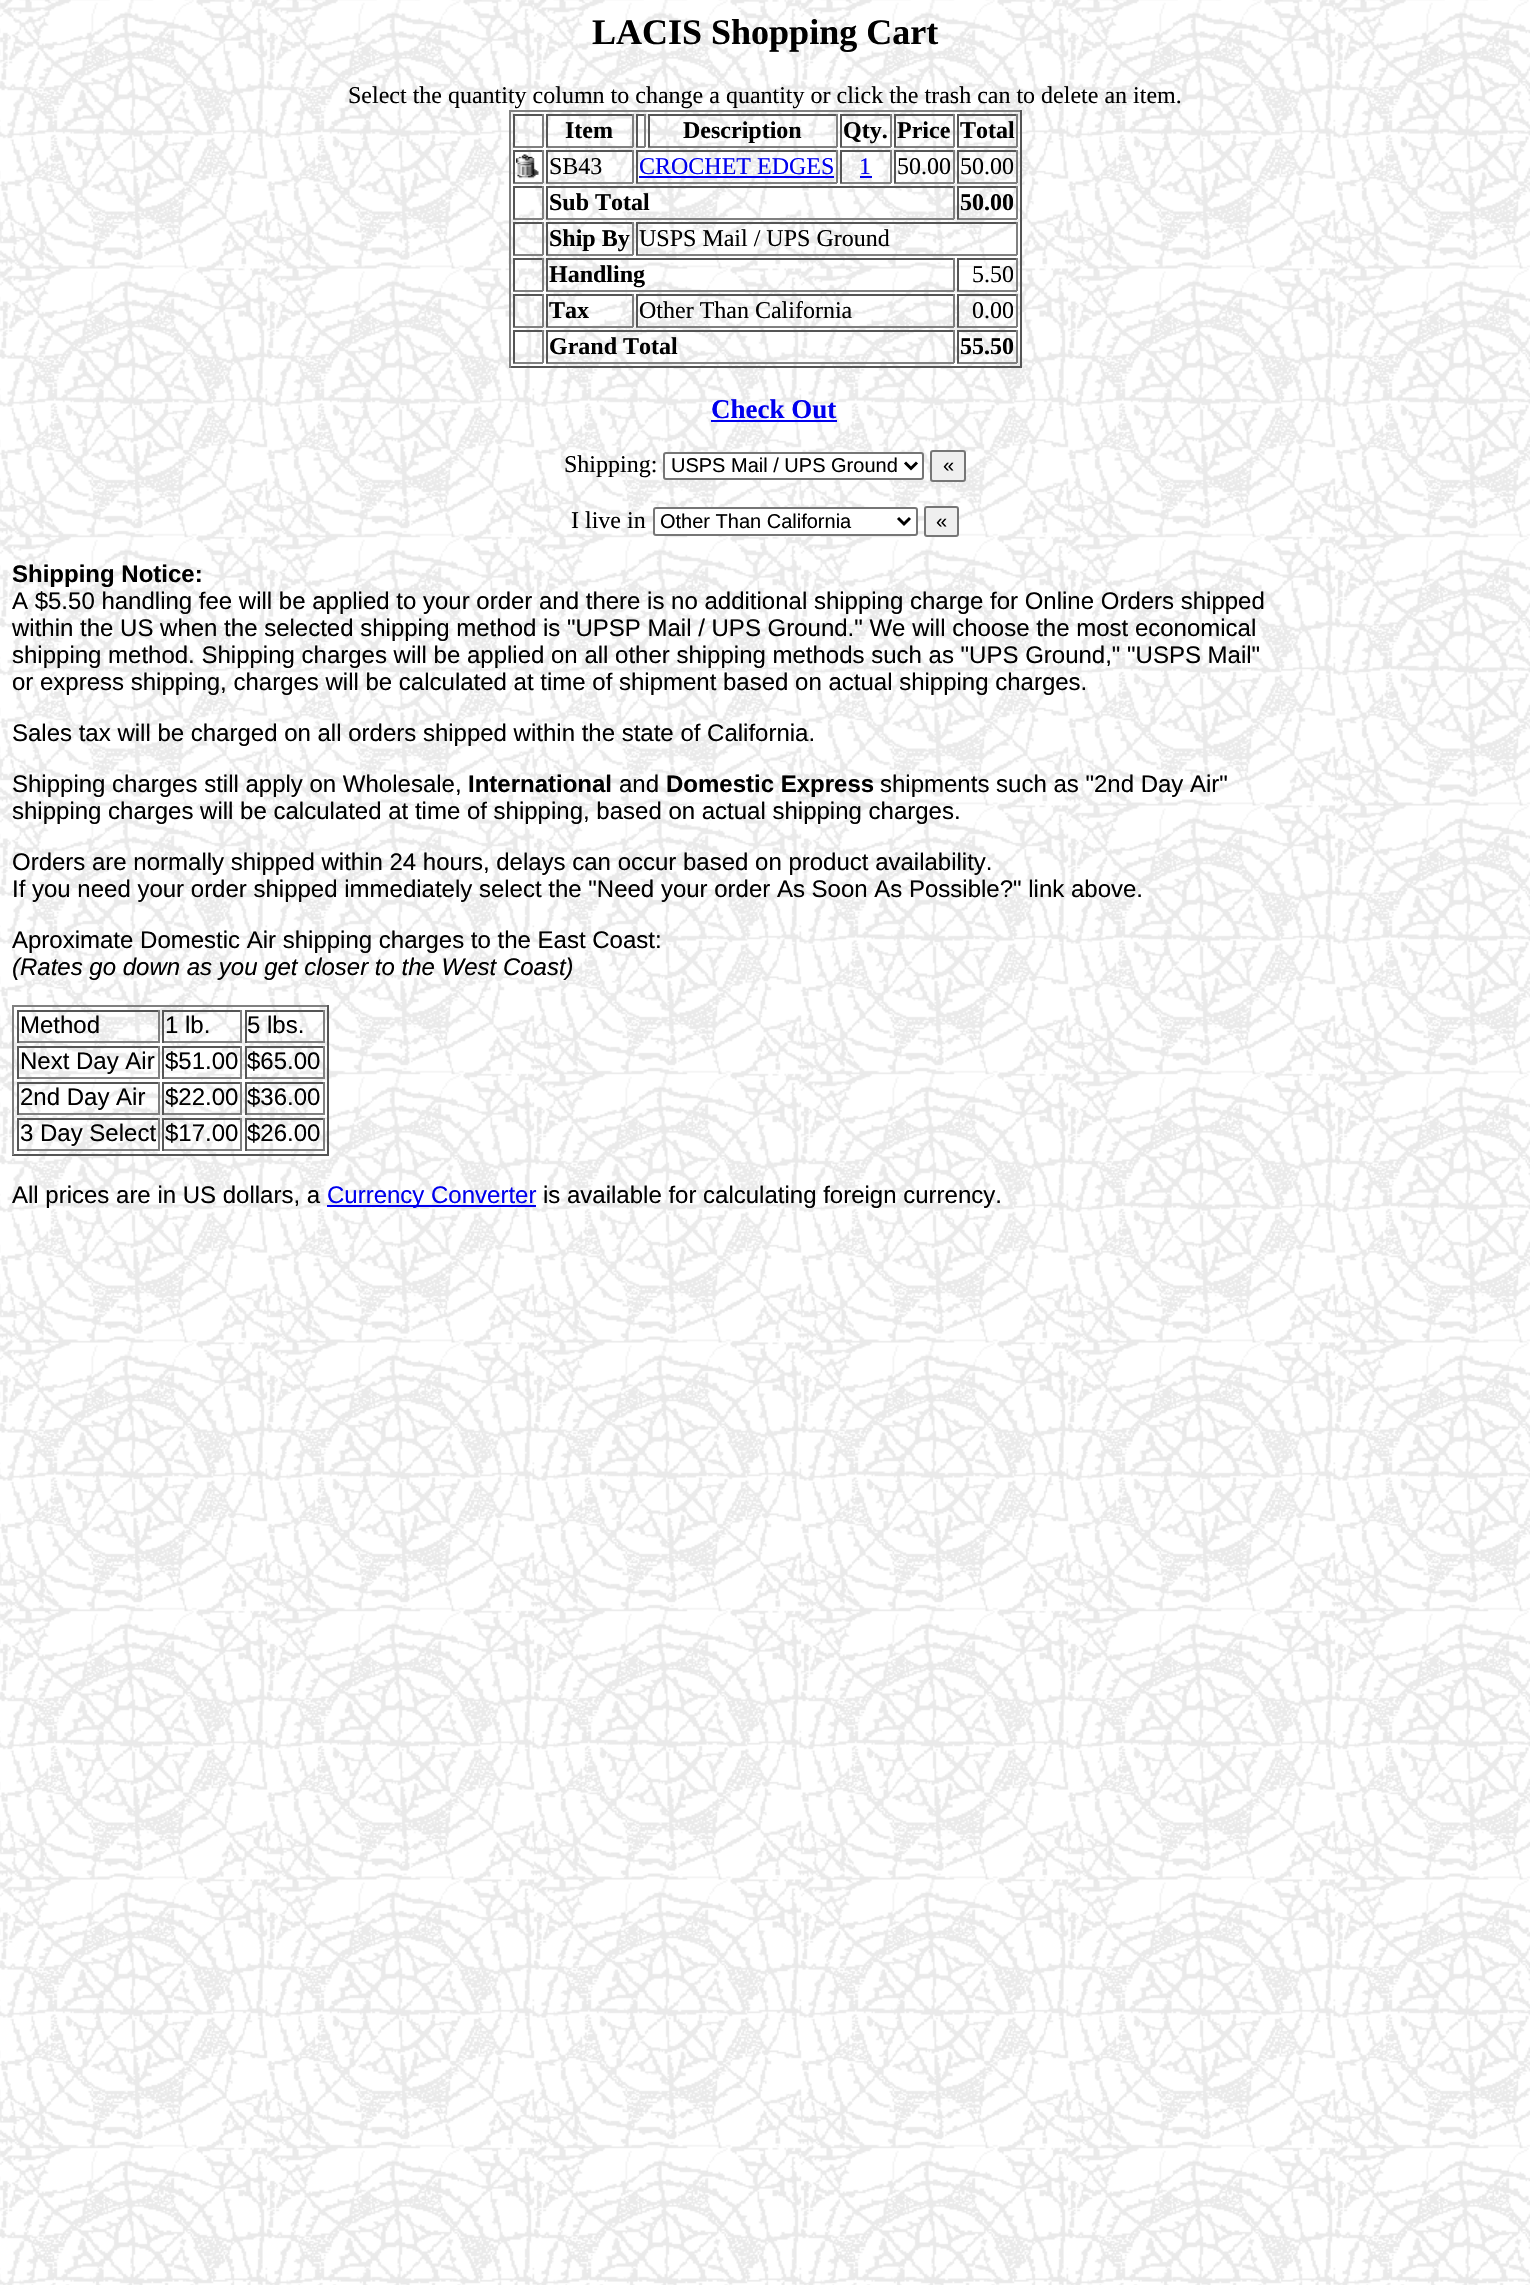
void draw(SkCanvas* canvas) {
    SkPaint paint;
    paint.setAntiAlias(true);
    auto face = [&](const char* family, int weight, float size, bool italic = false) {
        SkFontStyle style(weight, SkFontStyle::kNormal_Width,
            italic ? SkFontStyle::kItalic_Slant : SkFontStyle::kUpright_Slant);
        SkFont result(fontMgr->matchFamilyStyle(family, style), size);
        result.setSubpixel(true);
        return result;
    };
    auto write = [&](const char* s, float x, float y, const SkFont& font, SkColor color) {
        SkPaint ink(SkColor4f::FromColor(color));
        ink.setAntiAlias(true);
        canvas->drawString(s, x, y, font, ink);
    };
    auto block = [&](float x, float y, float w, float h, SkColor color) {
        SkPaint ink(SkColor4f::FromColor(color));
        ink.setAntiAlias(true);
        canvas->drawRect(SkRect::MakeXYWH(x, y, w, h), ink);
    };
    auto paste = [&](const char* path, float x, float y, float w, float h) {
        auto image = SkImages::DeferredFromEncodedData(SkData::MakeFromFileName(path));
        canvas->drawImageRect(image, SkRect::MakeXYWH(x, y, w, h), SkSamplingOptions());
    };
    canvas->clear(SK_ColorWHITE);
    paste("pic1.png", 0, 0, 1530, 2285);
    auto kFont1 = face("Liberation Serif", 700, 36);
    write("LACIS Shopping Cart", 592, 44, kFont1, SK_ColorBLACK);
    auto kFont2 = face("Liberation Serif", 400, 24);
    write("Select the quantity column to change a quantity or click the trash can to delete an item.", 348, 103, kFont2, SK_ColorBLACK);
    block(509, 110, 513, 2, SkColorSetRGB(128, 128, 128));
    block(1020, 110, 2, 258, SkColorSetRGB(85, 85, 85));
    block(509, 366, 513, 2, SkColorSetRGB(85, 85, 85));
    block(509, 110, 2, 258, SkColorSetRGB(128, 128, 128));
    block(513, 114, 30, 2, SkColorSetRGB(85, 85, 85));
    block(542, 114, 2, 33, SkColorSetRGB(128, 128, 128));
    block(513, 146, 30, 2, SkColorSetRGB(128, 128, 128));
    block(513, 114, 2, 33, SkColorSetRGB(85, 85, 85));
    block(546, 114, 87, 2, SkColorSetRGB(85, 85, 85));
    block(632, 114, 2, 33, SkColorSetRGB(128, 128, 128));
    block(546, 146, 87, 2, SkColorSetRGB(128, 128, 128));
    block(546, 114, 2, 33, SkColorSetRGB(85, 85, 85));
    auto kFont3 = face("Liberation Serif", 700, 24);
    write("Item", 565, 138, kFont3, SK_ColorBLACK);
    block(636, 114, 9, 2, SkColorSetRGB(85, 85, 85));
    block(644, 114, 2, 33, SkColorSetRGB(128, 128, 128));
    block(636, 146, 9, 2, SkColorSetRGB(128, 128, 128));
    block(636, 114, 2, 33, SkColorSetRGB(85, 85, 85));
    block(648, 114, 189, 2, SkColorSetRGB(85, 85, 85));
    block(836, 114, 2, 33, SkColorSetRGB(128, 128, 128));
    block(648, 146, 189, 2, SkColorSetRGB(128, 128, 128));
    block(648, 114, 2, 33, SkColorSetRGB(85, 85, 85));
    write("Description", 683, 138, kFont3, SK_ColorBLACK);
    block(840, 114, 51, 2, SkColorSetRGB(85, 85, 85));
    block(890, 114, 2, 33, SkColorSetRGB(128, 128, 128));
    block(840, 146, 51, 2, SkColorSetRGB(128, 128, 128));
    block(840, 114, 2, 33, SkColorSetRGB(85, 85, 85));
    write("Qty.", 843, 138, kFont3, SK_ColorBLACK);
    block(894, 114, 60, 2, SkColorSetRGB(85, 85, 85));
    block(953, 114, 2, 33, SkColorSetRGB(128, 128, 128));
    block(894, 146, 60, 2, SkColorSetRGB(128, 128, 128));
    block(894, 114, 2, 33, SkColorSetRGB(85, 85, 85));
    write("Price", 897, 138, kFont3, SK_ColorBLACK);
    block(957, 114, 60, 2, SkColorSetRGB(85, 85, 85));
    block(1016, 114, 2, 33, SkColorSetRGB(128, 128, 128));
    block(957, 146, 60, 2, SkColorSetRGB(128, 128, 128));
    block(957, 114, 2, 33, SkColorSetRGB(85, 85, 85));
    write("Total", 960, 138, kFont3, SK_ColorBLACK);
    block(513, 150, 30, 2, SkColorSetRGB(85, 85, 85));
    block(542, 150, 2, 33, SkColorSetRGB(128, 128, 128));
    block(513, 182, 30, 2, SkColorSetRGB(128, 128, 128));
    block(513, 150, 2, 33, SkColorSetRGB(85, 85, 85));
    paste("pic2.png", 516, 154, 23, 24);
    block(546, 150, 87, 2, SkColorSetRGB(85, 85, 85));
    block(632, 150, 2, 33, SkColorSetRGB(128, 128, 128));
    block(546, 182, 87, 2, SkColorSetRGB(128, 128, 128));
    block(546, 150, 2, 33, SkColorSetRGB(85, 85, 85));
    write("SB43", 549, 174, kFont2, SK_ColorBLACK);
    block(636, 150, 201, 2, SkColorSetRGB(85, 85, 85));
    block(836, 150, 2, 33, SkColorSetRGB(128, 128, 128));
    block(636, 182, 201, 2, SkColorSetRGB(128, 128, 128));
    block(636, 150, 2, 33, SkColorSetRGB(85, 85, 85));
    write("CROCHET EDGES", 639, 174, kFont2, SkColorSetRGB(0, 0, 238));
    block(639, 176, 195, 2, SkColorSetRGB(0, 0, 238));
    block(840, 150, 51, 2, SkColorSetRGB(85, 85, 85));
    block(890, 150, 2, 33, SkColorSetRGB(128, 128, 128));
    block(840, 182, 51, 2, SkColorSetRGB(128, 128, 128));
    block(840, 150, 2, 33, SkColorSetRGB(85, 85, 85));
    write("1", 859, 174, kFont2, SkColorSetRGB(0, 0, 238));
    block(860, 176, 12, 2, SkColorSetRGB(0, 0, 238));
    block(894, 150, 60, 2, SkColorSetRGB(85, 85, 85));
    block(953, 150, 2, 33, SkColorSetRGB(128, 128, 128));
    block(894, 182, 60, 2, SkColorSetRGB(128, 128, 128));
    block(894, 150, 2, 33, SkColorSetRGB(85, 85, 85));
    write("50.00", 897, 174, kFont2, SK_ColorBLACK);
    block(957, 150, 60, 2, SkColorSetRGB(85, 85, 85));
    block(1016, 150, 2, 33, SkColorSetRGB(128, 128, 128));
    block(957, 182, 60, 2, SkColorSetRGB(128, 128, 128));
    block(957, 150, 2, 33, SkColorSetRGB(85, 85, 85));
    write("50.00", 960, 174, kFont2, SK_ColorBLACK);
    block(513, 186, 30, 2, SkColorSetRGB(85, 85, 85));
    block(542, 186, 2, 33, SkColorSetRGB(128, 128, 128));
    block(513, 218, 30, 2, SkColorSetRGB(128, 128, 128));
    block(513, 186, 2, 33, SkColorSetRGB(85, 85, 85));
    block(546, 186, 408, 2, SkColorSetRGB(85, 85, 85));
    block(953, 186, 2, 33, SkColorSetRGB(128, 128, 128));
    block(546, 218, 408, 2, SkColorSetRGB(128, 128, 128));
    block(546, 186, 2, 33, SkColorSetRGB(85, 85, 85));
    write("Sub Total", 549, 210, kFont3, SK_ColorBLACK);
    block(957, 186, 60, 2, SkColorSetRGB(85, 85, 85));
    block(1016, 186, 2, 33, SkColorSetRGB(128, 128, 128));
    block(957, 218, 60, 2, SkColorSetRGB(128, 128, 128));
    block(957, 186, 2, 33, SkColorSetRGB(85, 85, 85));
    write("50.00", 960, 210, kFont3, SK_ColorBLACK);
    block(513, 222, 30, 2, SkColorSetRGB(85, 85, 85));
    block(542, 222, 2, 33, SkColorSetRGB(128, 128, 128));
    block(513, 254, 30, 2, SkColorSetRGB(128, 128, 128));
    block(513, 222, 2, 33, SkColorSetRGB(85, 85, 85));
    block(546, 222, 87, 2, SkColorSetRGB(85, 85, 85));
    block(632, 222, 2, 33, SkColorSetRGB(128, 128, 128));
    block(546, 254, 87, 2, SkColorSetRGB(128, 128, 128));
    block(546, 222, 2, 33, SkColorSetRGB(85, 85, 85));
    write("Ship By", 549, 246, kFont3, SK_ColorBLACK);
    block(636, 222, 381, 2, SkColorSetRGB(85, 85, 85));
    block(1016, 222, 2, 33, SkColorSetRGB(128, 128, 128));
    block(636, 254, 381, 2, SkColorSetRGB(128, 128, 128));
    block(636, 222, 2, 33, SkColorSetRGB(85, 85, 85));
    write("USPS Mail / UPS Ground", 639, 246, kFont2, SK_ColorBLACK);
    block(513, 258, 30, 2, SkColorSetRGB(85, 85, 85));
    block(542, 258, 2, 33, SkColorSetRGB(128, 128, 128));
    block(513, 290, 30, 2, SkColorSetRGB(128, 128, 128));
    block(513, 258, 2, 33, SkColorSetRGB(85, 85, 85));
    block(546, 258, 408, 2, SkColorSetRGB(85, 85, 85));
    block(953, 258, 2, 33, SkColorSetRGB(128, 128, 128));
    block(546, 290, 408, 2, SkColorSetRGB(128, 128, 128));
    block(546, 258, 2, 33, SkColorSetRGB(85, 85, 85));
    write("Handling", 549, 282, kFont3, SK_ColorBLACK);
    block(957, 258, 60, 2, SkColorSetRGB(85, 85, 85));
    block(1016, 258, 2, 33, SkColorSetRGB(128, 128, 128));
    block(957, 290, 60, 2, SkColorSetRGB(128, 128, 128));
    block(957, 258, 2, 33, SkColorSetRGB(85, 85, 85));
    write("5.50", 972, 282, kFont2, SK_ColorBLACK);
    block(513, 294, 30, 2, SkColorSetRGB(85, 85, 85));
    block(542, 294, 2, 33, SkColorSetRGB(128, 128, 128));
    block(513, 326, 30, 2, SkColorSetRGB(128, 128, 128));
    block(513, 294, 2, 33, SkColorSetRGB(85, 85, 85));
    block(546, 294, 87, 2, SkColorSetRGB(85, 85, 85));
    block(632, 294, 2, 33, SkColorSetRGB(128, 128, 128));
    block(546, 326, 87, 2, SkColorSetRGB(128, 128, 128));
    block(546, 294, 2, 33, SkColorSetRGB(85, 85, 85));
    write("Tax", 549, 318, kFont3, SK_ColorBLACK);
    block(636, 294, 318, 2, SkColorSetRGB(85, 85, 85));
    block(953, 294, 2, 33, SkColorSetRGB(128, 128, 128));
    block(636, 326, 318, 2, SkColorSetRGB(128, 128, 128));
    block(636, 294, 2, 33, SkColorSetRGB(85, 85, 85));
    write("Other Than California", 639, 318, kFont2, SK_ColorBLACK);
    block(957, 294, 60, 2, SkColorSetRGB(85, 85, 85));
    block(1016, 294, 2, 33, SkColorSetRGB(128, 128, 128));
    block(957, 326, 60, 2, SkColorSetRGB(128, 128, 128));
    block(957, 294, 2, 33, SkColorSetRGB(85, 85, 85));
    write("0.00", 972, 318, kFont2, SK_ColorBLACK);
    block(513, 330, 30, 2, SkColorSetRGB(85, 85, 85));
    block(542, 330, 2, 33, SkColorSetRGB(128, 128, 128));
    block(513, 362, 30, 2, SkColorSetRGB(128, 128, 128));
    block(513, 330, 2, 33, SkColorSetRGB(85, 85, 85));
    block(546, 330, 408, 2, SkColorSetRGB(85, 85, 85));
    block(953, 330, 2, 33, SkColorSetRGB(128, 128, 128));
    block(546, 362, 408, 2, SkColorSetRGB(128, 128, 128));
    block(546, 330, 2, 33, SkColorSetRGB(85, 85, 85));
    write("Grand Total", 549, 354, kFont3, SK_ColorBLACK);
    block(957, 330, 60, 2, SkColorSetRGB(85, 85, 85));
    block(1016, 330, 2, 33, SkColorSetRGB(128, 128, 128));
    block(957, 362, 60, 2, SkColorSetRGB(128, 128, 128));
    block(957, 330, 2, 33, SkColorSetRGB(85, 85, 85));
    write("55.50", 960, 354, kFont3, SK_ColorBLACK);
    auto kFont4 = face("Liberation Serif", 700, 27);
    write("Check Out", 711, 418, kFont4, SkColorSetRGB(0, 0, 238));
    block(711, 420, 126, 2, SkColorSetRGB(0, 0, 238));
    write("Shipping:", 564, 472, kFont2, SK_ColorBLACK);
    paint.setColor(SK_ColorWHITE);
    canvas->drawRoundRect(SkRect::MakeXYWH(664, 453, 259, 26), 2, 2, paint);
    paint.setStyle(SkPaint::kStroke_Style);
    paint.setStrokeWidth(2);
    paint.setColor(SkColorSetRGB(118, 118, 118));
    canvas->drawRoundRect(SkRect::MakeXYWH(664, 453, 259, 26), 2, 2, paint);
    paint.setStrokeWidth(3);
    paint.setColor(SK_ColorBLACK);
    canvas->drawPath(SkPathBuilder().moveTo(905, 462.5f).lineTo(911, 468.5f).lineTo(917, 462.5f).detach(), paint);
    auto kFont5 = face("Liberation Sans", 400, 20);
    write("USPS Mail / UPS Ground", 671, 472, kFont5, SK_ColorBLACK);
    paint.setStyle(SkPaint::kFill_Style);
    paint.setColor(SkColorSetRGB(239, 239, 239));
    canvas->drawRoundRect(SkRect::MakeXYWH(931, 451, 34, 30), 2, 2, paint);
    paint.setStyle(SkPaint::kStroke_Style);
    paint.setStrokeWidth(2);
    paint.setColor(SkColorSetRGB(118, 118, 118));
    canvas->drawRoundRect(SkRect::MakeXYWH(931, 451, 34, 30), 2, 2, paint);
    write("«", 943, 472, kFont5, SK_ColorBLACK);
    write("I live in", 571, 528, kFont2, SK_ColorBLACK);
    paint.setStyle(SkPaint::kFill_Style);
    paint.setColor(SK_ColorWHITE);
    canvas->drawRoundRect(SkRect::MakeXYWH(654, 508, 263, 27), 2, 2, paint);
    paint.setStyle(SkPaint::kStroke_Style);
    paint.setColor(SkColorSetRGB(118, 118, 118));
    canvas->drawRoundRect(SkRect::MakeXYWH(654, 508, 263, 27), 2, 2, paint);
    paint.setStrokeWidth(3);
    paint.setColor(SK_ColorBLACK);
    canvas->drawPath(SkPathBuilder().moveTo(898, 518).lineTo(904, 524).lineTo(910, 518).detach(), paint);
    write("Other Than California", 660, 528, kFont5, SK_ColorBLACK);
    paint.setStyle(SkPaint::kFill_Style);
    paint.setColor(SkColorSetRGB(239, 239, 239));
    canvas->drawRoundRect(SkRect::MakeXYWH(925, 507, 33, 29), 2, 2, paint);
    paint.setStyle(SkPaint::kStroke_Style);
    paint.setStrokeWidth(2);
    paint.setColor(SkColorSetRGB(118, 118, 118));
    canvas->drawRoundRect(SkRect::MakeXYWH(925, 507, 33, 29), 2, 2, paint);
    write("«", 936, 528, kFont5, SK_ColorBLACK);
    auto kFont6 = face("Liberation Sans", 700, 24);
    write("Shipping Notice:", 12, 582, kFont6, SK_ColorBLACK);
    auto kFont7 = face("Liberation Sans", 400, 24);
    write("A $5.50 handling fee will be applied to your order and there is no additional shipping charge for Online Orders shipped", 12, 609, kFont7, SK_ColorBLACK);
    write("within the US when the selected shipping method is \"UPSP Mail / UPS Ground.\" We will choose the most economical", 12, 636, kFont7, SK_ColorBLACK);
    write("shipping method. Shipping charges will be applied on all other shipping methods such as \"UPS Ground,\" \"USPS Mail\"", 12, 663, kFont7, SK_ColorBLACK);
    write("or express shipping, charges will be calculated at time of shipment based on actual shipping charges.", 12, 690, kFont7, SK_ColorBLACK);
    write("Sales tax will be charged on all orders shipped within the state of California.", 12, 741, kFont7, SK_ColorBLACK);
    write("Shipping charges still apply on Wholesale,", 12, 792, kFont7, SK_ColorBLACK);
    write("International", 468, 792, kFont6, SK_ColorBLACK);
    write("and", 619, 792, kFont7, SK_ColorBLACK);
    write("Domestic Express", 666, 792, kFont6, SK_ColorBLACK);
    write("shipments such as \"2nd Day Air\"", 880, 792, kFont7, SK_ColorBLACK);
    write("shipping charges will be calculated at time of shipping, based on actual shipping charges.", 12, 819, kFont7, SK_ColorBLACK);
    write("Orders are normally shipped within 24 hours, delays can occur based on product availability.", 12, 870, kFont7, SK_ColorBLACK);
    write("If you need your order shipped immediately select the \"Need your order As Soon As Possible?\" link above.", 12, 897, kFont7, SK_ColorBLACK);
    write("Aproximate Domestic Air shipping charges to the East Coast:", 12, 948, kFont7, SK_ColorBLACK);
    auto kFont8 = face("Liberation Sans", 400, 24, true);
    write("(Rates go down as you get closer to the West Coast)", 12, 975, kFont8, SK_ColorBLACK);
    block(12, 1005, 317, 2, SkColorSetRGB(128, 128, 128));
    block(327, 1005, 2, 150, SkColorSetRGB(85, 85, 85));
    block(12, 1154, 317, 2, SkColorSetRGB(85, 85, 85));
    block(12, 1005, 2, 150, SkColorSetRGB(128, 128, 128));
    block(17, 1010, 142, 2, SkColorSetRGB(85, 85, 85));
    block(158, 1010, 2, 33, SkColorSetRGB(128, 128, 128));
    block(17, 1041, 142, 2, SkColorSetRGB(128, 128, 128));
    block(17, 1010, 2, 33, SkColorSetRGB(85, 85, 85));
    write("Method", 20, 1033, kFont7, SK_ColorBLACK);
    block(162, 1010, 80, 2, SkColorSetRGB(85, 85, 85));
    block(240, 1010, 2, 33, SkColorSetRGB(128, 128, 128));
    block(162, 1041, 80, 2, SkColorSetRGB(128, 128, 128));
    block(162, 1010, 2, 33, SkColorSetRGB(85, 85, 85));
    write("1 lb.", 165, 1033, kFont7, SK_ColorBLACK);
    block(245, 1010, 79, 2, SkColorSetRGB(85, 85, 85));
    block(323, 1010, 2, 33, SkColorSetRGB(128, 128, 128));
    block(245, 1041, 79, 2, SkColorSetRGB(128, 128, 128));
    block(245, 1010, 2, 33, SkColorSetRGB(85, 85, 85));
    write("5 lbs.", 247, 1033, kFont7, SK_ColorBLACK);
    block(17, 1046, 142, 2, SkColorSetRGB(85, 85, 85));
    block(158, 1046, 2, 33, SkColorSetRGB(128, 128, 128));
    block(17, 1077, 142, 2, SkColorSetRGB(128, 128, 128));
    block(17, 1046, 2, 33, SkColorSetRGB(85, 85, 85));
    write("Next Day Air", 20, 1069, kFont7, SK_ColorBLACK);
    block(162, 1046, 80, 2, SkColorSetRGB(85, 85, 85));
    block(240, 1046, 2, 33, SkColorSetRGB(128, 128, 128));
    block(162, 1077, 80, 2, SkColorSetRGB(128, 128, 128));
    block(162, 1046, 2, 33, SkColorSetRGB(85, 85, 85));
    write("$51.00", 165, 1069, kFont7, SK_ColorBLACK);
    block(245, 1046, 79, 2, SkColorSetRGB(85, 85, 85));
    block(323, 1046, 2, 33, SkColorSetRGB(128, 128, 128));
    block(245, 1077, 79, 2, SkColorSetRGB(128, 128, 128));
    block(245, 1046, 2, 33, SkColorSetRGB(85, 85, 85));
    write("$65.00", 247, 1069, kFont7, SK_ColorBLACK);
    block(17, 1082, 142, 2, SkColorSetRGB(85, 85, 85));
    block(158, 1082, 2, 33, SkColorSetRGB(128, 128, 128));
    block(17, 1113, 142, 2, SkColorSetRGB(128, 128, 128));
    block(17, 1082, 2, 33, SkColorSetRGB(85, 85, 85));
    write("2nd Day Air", 20, 1105, kFont7, SK_ColorBLACK);
    block(162, 1082, 80, 2, SkColorSetRGB(85, 85, 85));
    block(240, 1082, 2, 33, SkColorSetRGB(128, 128, 128));
    block(162, 1113, 80, 2, SkColorSetRGB(128, 128, 128));
    block(162, 1082, 2, 33, SkColorSetRGB(85, 85, 85));
    write("$22.00", 165, 1105, kFont7, SK_ColorBLACK);
    block(245, 1082, 79, 2, SkColorSetRGB(85, 85, 85));
    block(323, 1082, 2, 33, SkColorSetRGB(128, 128, 128));
    block(245, 1113, 79, 2, SkColorSetRGB(128, 128, 128));
    block(245, 1082, 2, 33, SkColorSetRGB(85, 85, 85));
    write("$36.00", 247, 1105, kFont7, SK_ColorBLACK);
    block(17, 1118, 142, 2, SkColorSetRGB(85, 85, 85));
    block(158, 1118, 2, 33, SkColorSetRGB(128, 128, 128));
    block(17, 1149, 142, 2, SkColorSetRGB(128, 128, 128));
    block(17, 1118, 2, 33, SkColorSetRGB(85, 85, 85));
    write("3 Day Select", 20, 1141, kFont7, SK_ColorBLACK);
    block(162, 1118, 80, 2, SkColorSetRGB(85, 85, 85));
    block(240, 1118, 2, 33, SkColorSetRGB(128, 128, 128));
    block(162, 1149, 80, 2, SkColorSetRGB(128, 128, 128));
    block(162, 1118, 2, 33, SkColorSetRGB(85, 85, 85));
    write("$17.00", 165, 1141, kFont7, SK_ColorBLACK);
    block(245, 1118, 79, 2, SkColorSetRGB(85, 85, 85));
    block(323, 1118, 2, 33, SkColorSetRGB(128, 128, 128));
    block(245, 1149, 79, 2, SkColorSetRGB(128, 128, 128));
    block(245, 1118, 2, 33, SkColorSetRGB(85, 85, 85));
    write("$26.00", 247, 1141, kFont7, SK_ColorBLACK);
    write("All prices are in US dollars, a", 12, 1203, kFont7, SK_ColorBLACK);
    block(327, 1205, 209, 2, SkColorSetRGB(0, 0, 238));
    write("Currency Converter", 327, 1203, kFont7, SkColorSetRGB(0, 0, 238));
    write("is available for calculating foreign currency.", 543, 1203, kFont7, SK_ColorBLACK);
}
